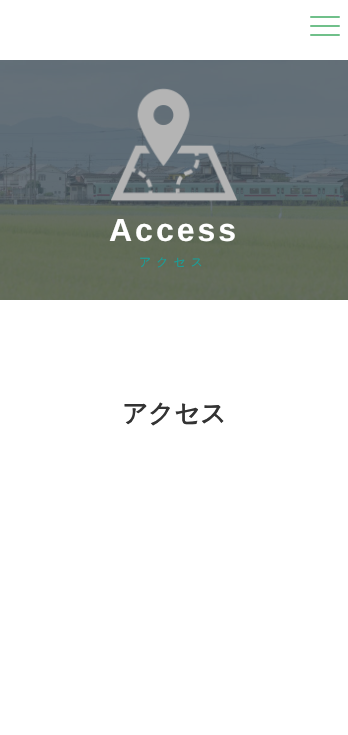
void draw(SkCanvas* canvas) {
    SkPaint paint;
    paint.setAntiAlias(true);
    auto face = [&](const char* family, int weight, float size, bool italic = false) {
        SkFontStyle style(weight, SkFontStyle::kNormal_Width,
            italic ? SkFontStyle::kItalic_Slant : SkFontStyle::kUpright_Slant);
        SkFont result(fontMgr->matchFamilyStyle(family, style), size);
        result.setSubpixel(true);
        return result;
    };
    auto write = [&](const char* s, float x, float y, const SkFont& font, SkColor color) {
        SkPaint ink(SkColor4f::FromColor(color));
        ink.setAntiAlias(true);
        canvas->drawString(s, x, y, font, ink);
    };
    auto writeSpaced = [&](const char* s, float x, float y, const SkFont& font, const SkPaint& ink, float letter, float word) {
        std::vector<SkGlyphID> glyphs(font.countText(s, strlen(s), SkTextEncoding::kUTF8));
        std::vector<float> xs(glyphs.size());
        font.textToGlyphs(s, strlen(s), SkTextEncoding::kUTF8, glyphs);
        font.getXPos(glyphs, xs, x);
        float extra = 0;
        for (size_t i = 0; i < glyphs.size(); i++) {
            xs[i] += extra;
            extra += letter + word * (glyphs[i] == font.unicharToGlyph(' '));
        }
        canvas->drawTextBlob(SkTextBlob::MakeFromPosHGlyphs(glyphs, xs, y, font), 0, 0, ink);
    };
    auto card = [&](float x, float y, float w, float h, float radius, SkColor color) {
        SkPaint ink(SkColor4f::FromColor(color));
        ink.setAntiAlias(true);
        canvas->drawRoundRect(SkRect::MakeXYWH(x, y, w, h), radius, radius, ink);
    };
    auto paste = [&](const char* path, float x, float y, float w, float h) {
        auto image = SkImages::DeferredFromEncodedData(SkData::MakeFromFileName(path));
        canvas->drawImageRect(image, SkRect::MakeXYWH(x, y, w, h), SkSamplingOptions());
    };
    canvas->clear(SK_ColorWHITE);
    card(310, 16, 30, 2, 1, SkColorSetRGB(112, 192, 138));
    card(310, 25, 30, 2, 1, SkColorSetRGB(112, 192, 138));
    card(310, 34, 30, 2, 1, SkColorSetRGB(112, 192, 138));
    paste("pic1.png", 0, 60, 348, 240);
    paste("pic2.png", 111, 88, 126, 114);
    auto kFont1 = face("Liberation Sans", 700, 32);
    paint.setColor(SK_ColorWHITE);
    writeSpaced("Access", 109, 241, kFont1, paint, 3, 0);
    auto kFont2 = face("WenQuanYi Zen Hei", 500, 12);
    paint.setColor(SkColorSetRGB(23, 160, 155));
    writeSpaced("アクセス", 139, 266, kFont2, paint, 5, 0);
    auto kFont3 = face("WenQuanYi Zen Hei", 700, 25.5f);
    write("アクセス", 122, 422, kFont3, SkColorSetRGB(51, 51, 51));
}
